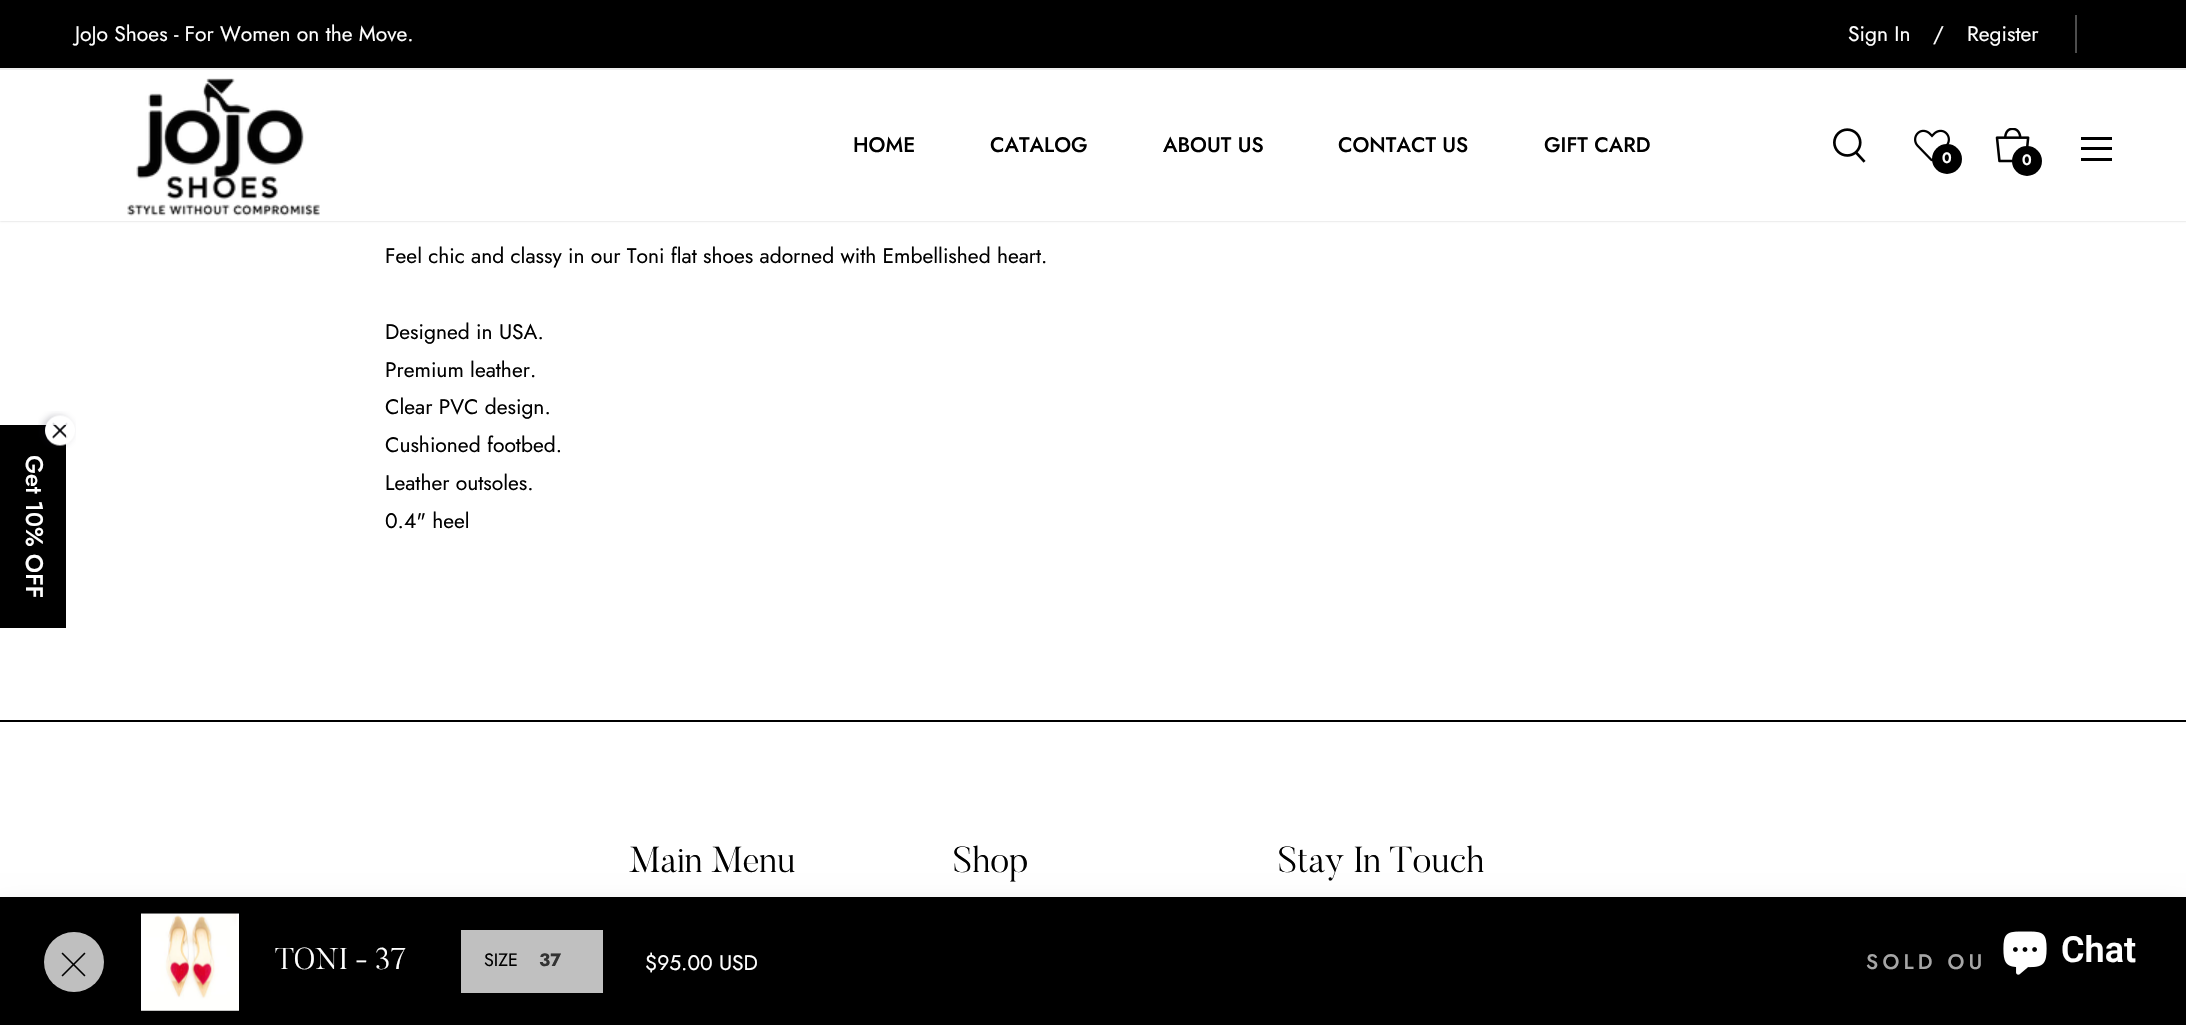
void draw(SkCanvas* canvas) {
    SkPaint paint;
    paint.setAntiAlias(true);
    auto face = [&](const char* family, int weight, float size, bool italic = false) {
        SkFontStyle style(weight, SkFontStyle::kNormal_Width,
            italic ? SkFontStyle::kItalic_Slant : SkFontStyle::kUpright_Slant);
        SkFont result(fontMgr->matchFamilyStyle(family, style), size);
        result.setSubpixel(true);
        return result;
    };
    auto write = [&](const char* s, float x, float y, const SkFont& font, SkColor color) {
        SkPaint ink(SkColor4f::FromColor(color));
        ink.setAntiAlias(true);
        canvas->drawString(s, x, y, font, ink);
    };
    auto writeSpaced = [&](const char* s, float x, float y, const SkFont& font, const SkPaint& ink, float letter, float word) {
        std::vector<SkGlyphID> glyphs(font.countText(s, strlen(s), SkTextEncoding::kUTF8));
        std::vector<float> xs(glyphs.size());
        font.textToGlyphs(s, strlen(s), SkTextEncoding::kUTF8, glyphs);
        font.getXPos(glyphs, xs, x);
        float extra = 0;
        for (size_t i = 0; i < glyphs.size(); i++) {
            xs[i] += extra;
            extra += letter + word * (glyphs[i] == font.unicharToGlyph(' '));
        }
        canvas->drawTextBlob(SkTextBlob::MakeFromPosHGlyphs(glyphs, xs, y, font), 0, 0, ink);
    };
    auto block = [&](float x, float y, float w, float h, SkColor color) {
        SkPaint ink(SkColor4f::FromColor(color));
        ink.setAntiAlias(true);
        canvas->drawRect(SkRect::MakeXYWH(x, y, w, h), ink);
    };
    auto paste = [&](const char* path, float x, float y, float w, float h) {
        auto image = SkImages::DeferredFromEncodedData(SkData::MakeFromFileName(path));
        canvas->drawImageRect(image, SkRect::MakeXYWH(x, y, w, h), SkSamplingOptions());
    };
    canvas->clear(SK_ColorWHITE);
    paint.setColor(SkColorSetARGB(51, 0, 0, 0));
    paint.setMaskFilter(SkMaskFilter::MakeBlur(kNormal_SkBlurStyle, 1));
    canvas->drawRect(SkRect::MakeXYWH(0, 0, 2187, 221), paint);
    paint.setMaskFilter(nullptr);
    block(0, 70, 2186, 151, SK_ColorWHITE);
    block(0, 0, 2186, 68, SK_ColorBLACK);
    block(0, 68, 2186, 2, SkColorSetRGB(238, 238, 238));
    auto kFont1 = face("Jost", 400, 21);
    write("JoJo Shoes - For Women on the Move.", 75, 41, kFont1, SK_ColorWHITE);
    block(2075, 15, 2, 38, SkColorSetRGB(77, 77, 77));
    write("Sign In", 1848, 41, kFont1, SK_ColorWHITE);
    write("/", 1933, 41, kFont1, SK_ColorWHITE);
    write("Register", 1967, 41, kFont1, SK_ColorWHITE);
    paste("pic1.png", 127, 78, 193, 138);
    auto kFont2 = face("Jost", 500, 21);
    write("HOME", 853, 152, kFont2, SK_ColorBLACK);
    write("CATALOG", 990, 152, kFont2, SK_ColorBLACK);
    write("ABOUT US", 1163, 152, kFont2, SK_ColorBLACK);
    write("CONTACT US", 1338, 152, kFont2, SK_ColorBLACK);
    write("GIFT CARD", 1544, 152, kFont2, SK_ColorBLACK);
    paste("pic2.png", 1833, 128, 33, 35);
    paste("pic3.png", 1914, 129, 36, 33);
    paint.setColor(SK_ColorBLACK);
    canvas->drawCircle(1947, 159, 15, paint);
    auto kFont3 = face("Jost", 600, 15);
    write("0", 1942, 163, kFont3, SK_ColorWHITE);
    paste("pic4.png", 1995, 128, 35, 35);
    canvas->drawCircle(2027, 161, 15, paint);
    write("0", 2022, 165, kFont3, SK_ColorWHITE);
    block(2081, 137, 31, 3, SK_ColorBLACK);
    block(2081, 147, 31, 3, SK_ColorBLACK);
    block(2081, 158, 31, 3, SK_ColorBLACK);
    block(0, 425, 66, 203, SK_ColorBLACK);
    paste("pic5.png", 38, 411, 38, 37);
    auto kFont4 = face("Jost", 500, 24);
    canvas->save();
    canvas->rotate(90, 26, 455);
    write("Get 10% OFF", 26, 455, kFont4, SK_ColorWHITE);
    canvas->restore();
    write("Feel chic and classy in our Toni flat shoes adorned with Embellished heart.", 385, 263, kFont1, SK_ColorBLACK);
    write("Designed in USA.", 385, 339, kFont1, SK_ColorBLACK);
    write("Premium leather.", 385, 377, kFont1, SK_ColorBLACK);
    write("Clear PVC design.", 385, 414, kFont1, SK_ColorBLACK);
    write("Cushioned footbed.", 385, 452, kFont1, SK_ColorBLACK);
    write("Leather outsoles.", 385, 490, kFont1, SK_ColorBLACK);
    write("0.4\" heel", 385, 528, kFont1, SK_ColorBLACK);
    paint.setColor(SkColorSetARGB(38, 0, 0, 0));
    paint.setMaskFilter(SkMaskFilter::MakeBlur(kNormal_SkBlurStyle, 12));
    canvas->drawRect(SkRect::MakeXYWH(0, 909, 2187, 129), paint);
    paint.setMaskFilter(nullptr);
    block(0, 897, 2186, 128, SK_ColorBLACK);
    paint.setColor(SkColorSetRGB(191, 191, 191));
    canvas->drawCircle(74, 962, 30, paint);
    paste("pic6.png", 61, 952, 25, 25);
    paste("pic7.png", 141, 913, 98, 98);
    auto kFont5 = face("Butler", 300, 30);
    write("TONI - 37", 275, 969, kFont5, SK_ColorWHITE);
    block(461, 930, 142, 63, SkColorSetRGB(192, 192, 192));
    auto kFont6 = face("Jost", 400, 18);
    write("SIZE", 484, 966, kFont6, SK_ColorBLACK);
    auto kFont7 = face("Jost", 700, 18);
    write("37", 539, 966, kFont7, SkColorSetRGB(51, 51, 51));
    write("$95.00 USD", 645, 970, kFont1, SK_ColorWHITE);
    paint.setColor(SkColorSetRGB(166, 166, 166));
    writeSpaced("SOLD OU", 1866, 969, kFont2, paint, 4.25f, 0);
    block(0, 720, 2186, 2, SK_ColorBLACK);
    auto kFont8 = face("Butler", 300, 36);
    write("Main Menu", 629, 872, kFont8, SK_ColorBLACK);
    write("Shop", 953, 872, kFont8, SK_ColorBLACK);
    write("Stay In Touch", 1278, 872, kFont8, SK_ColorBLACK);
    paste("pic8.png", 2003, 931, 44, 44);
    auto kFont9 = face("Roboto", 600, 36);
    write("Chat", 2061, 962, kFont9, SK_ColorWHITE);
}
